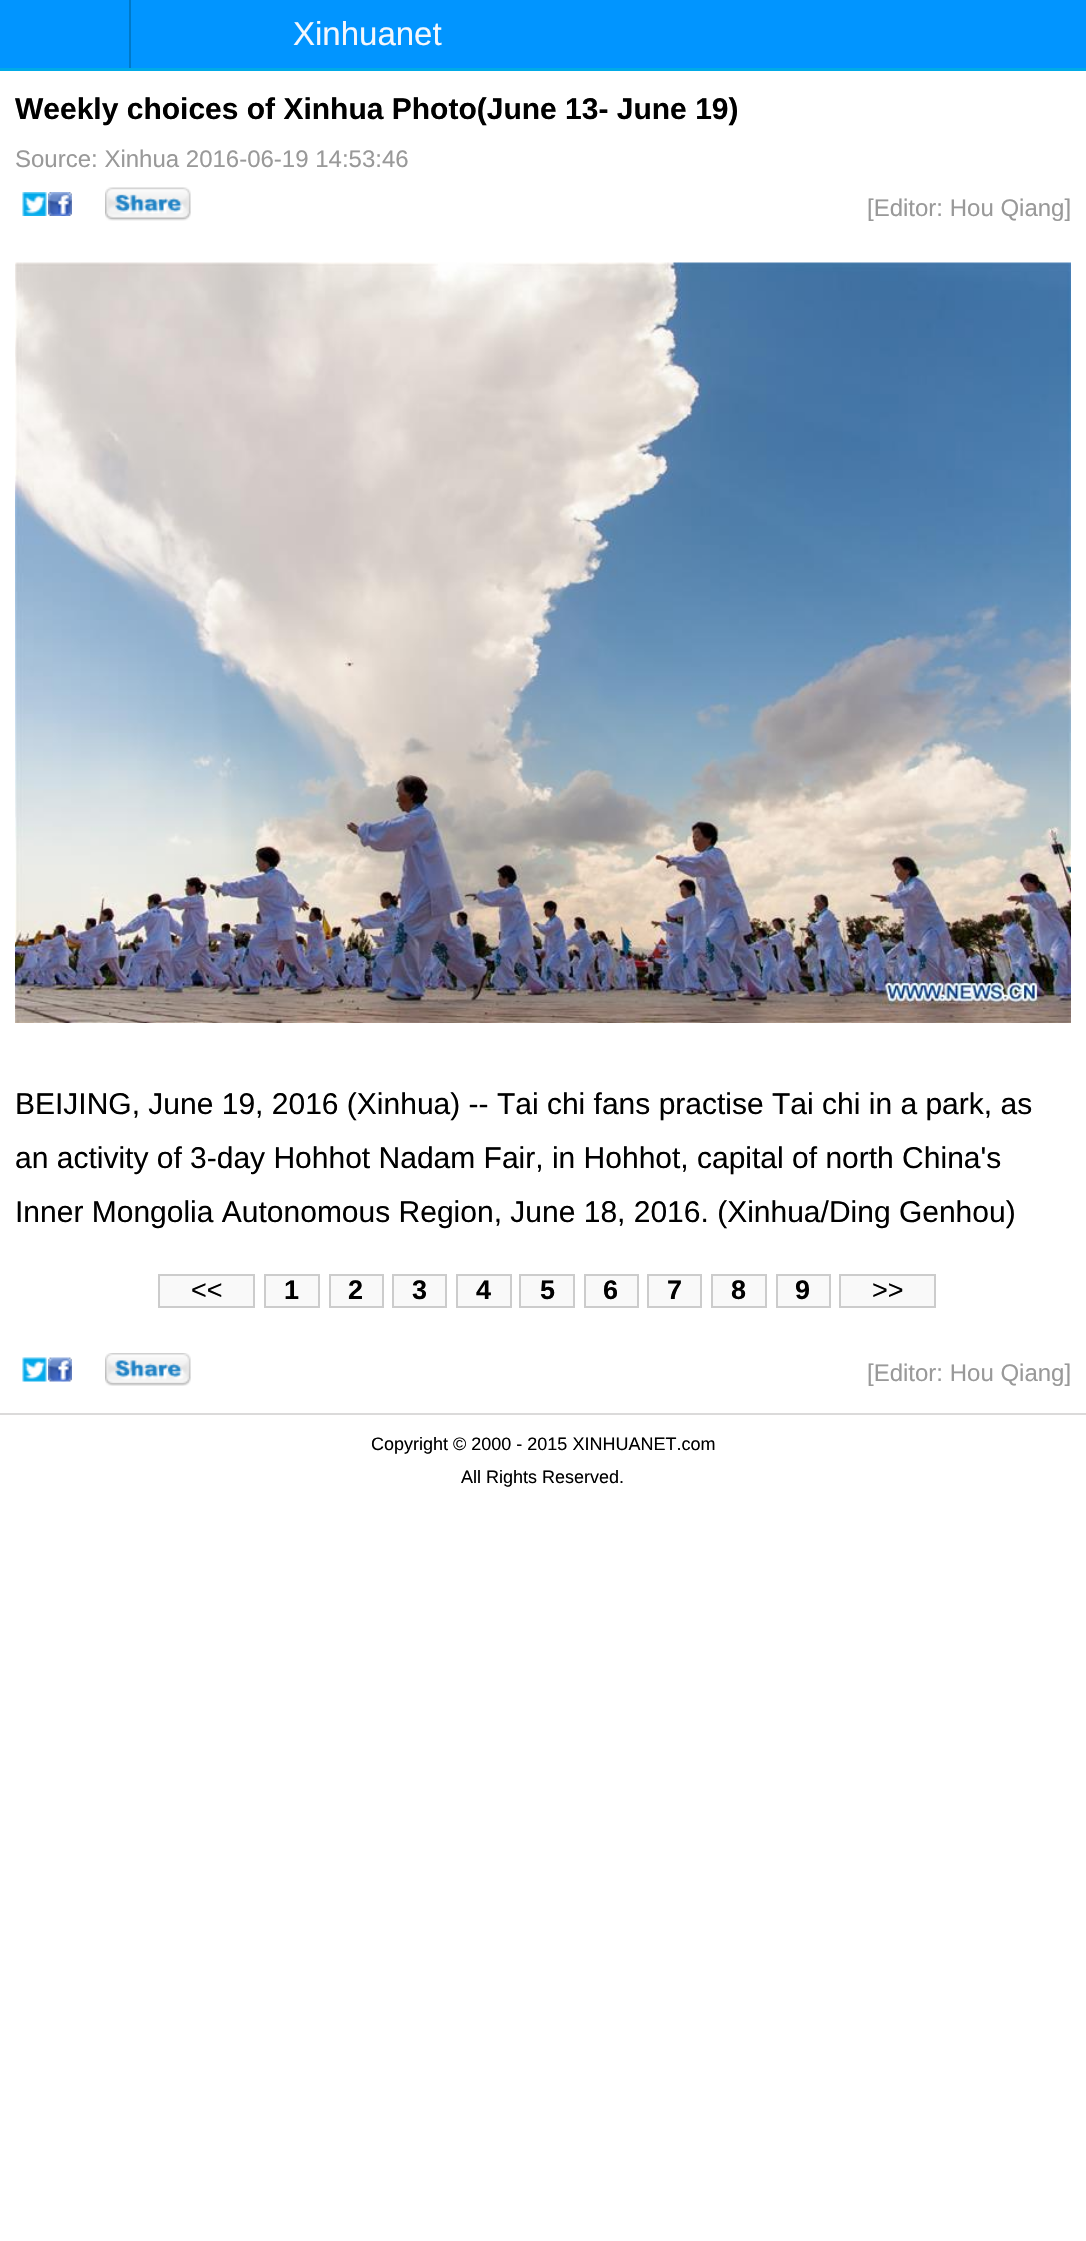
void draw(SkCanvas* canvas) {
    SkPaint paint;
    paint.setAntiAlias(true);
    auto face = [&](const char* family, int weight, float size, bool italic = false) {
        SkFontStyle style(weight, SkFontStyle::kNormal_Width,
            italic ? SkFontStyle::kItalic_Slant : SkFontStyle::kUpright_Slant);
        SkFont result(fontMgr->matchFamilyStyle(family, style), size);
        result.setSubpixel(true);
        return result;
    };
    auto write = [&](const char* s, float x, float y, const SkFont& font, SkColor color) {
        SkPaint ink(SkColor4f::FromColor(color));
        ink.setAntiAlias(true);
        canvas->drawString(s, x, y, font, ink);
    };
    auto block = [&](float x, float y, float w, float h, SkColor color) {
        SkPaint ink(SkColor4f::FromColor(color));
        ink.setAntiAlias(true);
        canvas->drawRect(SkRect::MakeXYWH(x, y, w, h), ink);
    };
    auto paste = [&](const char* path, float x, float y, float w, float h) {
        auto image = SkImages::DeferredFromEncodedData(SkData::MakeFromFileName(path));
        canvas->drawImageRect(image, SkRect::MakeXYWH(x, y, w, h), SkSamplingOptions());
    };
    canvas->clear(SK_ColorWHITE);
    block(0, 0, 1086, 68, SkColorSetRGB(1, 149, 255));
    block(0, 68, 1086, 3, SkColorSetRGB(0, 171, 231));
    block(129, 0, 2, 68, SkColorSetRGB(0, 121, 200));
    auto kFont1 = face("Liberation Sans", 400, 33);
    write("Xinhuanet", 293, 45, kFont1, SkColorSetRGB(244, 247, 252));
    auto kFont2 = face("Liberation Sans", 700, 30);
    write("Weekly choices of Xinhua Photo(June 13- June 19)", 15, 119, kFont2, SK_ColorBLACK);
    auto kFont3 = face("Liberation Sans", 400, 24);
    write("Source: Xinhua 2016-06-19 14:53:46", 15, 167, kFont3, SkColorSetRGB(153, 153, 153));
    paste("pic1.png", 22, 192, 25, 24);
    paste("pic2.png", 48, 192, 24, 24);
    paste("pic3.png", 105, 187, 86, 34);
    write("[Editor: Hou Qiang]", 867, 216, kFont3, SkColorSetRGB(153, 153, 153));
    paste("pic4.png", 15, 262, 1056, 761);
    auto kFont4 = face("Liberation Sans", 400, 30);
    write("BEIJING, June 19, 2016 (Xinhua) -- Tai chi fans practise Tai chi in a park, as", 15, 1114, kFont4, SK_ColorBLACK);
    write("an activity of 3-day Hohhot Nadam Fair, in Hohhot, capital of north China's", 15, 1168, kFont4, SK_ColorBLACK);
    write("Inner Mongolia Autonomous Region, June 18, 2016. (Xinhua/Ding Genhou)", 15, 1222, kFont4, SK_ColorBLACK);
    paint.setColor(SkColorSetRGB(249, 249, 249));
    canvas->drawRect(SkRect::MakeXYWH(159, 1275, 95, 32), paint);
    paint.setStyle(SkPaint::kStroke_Style);
    paint.setStrokeWidth(2);
    paint.setColor(SkColorSetRGB(204, 204, 204));
    canvas->drawRect(SkRect::MakeXYWH(159, 1275, 95, 32), paint);
    auto kFont5 = face("Liberation Sans", 400, 27);
    write("<<", 191, 1299, kFont5, SK_ColorBLACK);
    paint.setStyle(SkPaint::kFill_Style);
    paint.setColor(SkColorSetRGB(249, 249, 249));
    canvas->drawRect(SkRect::MakeXYWH(265, 1275, 54, 32), paint);
    paint.setStyle(SkPaint::kStroke_Style);
    paint.setColor(SkColorSetRGB(204, 204, 204));
    canvas->drawRect(SkRect::MakeXYWH(265, 1275, 54, 32), paint);
    auto kFont6 = face("Liberation Sans", 700, 27);
    write("1", 284, 1299, kFont6, SK_ColorBLACK);
    paint.setStyle(SkPaint::kFill_Style);
    paint.setColor(SkColorSetRGB(249, 249, 249));
    canvas->drawRect(SkRect::MakeXYWH(330, 1275, 53, 32), paint);
    paint.setStyle(SkPaint::kStroke_Style);
    paint.setColor(SkColorSetRGB(204, 204, 204));
    canvas->drawRect(SkRect::MakeXYWH(330, 1275, 53, 32), paint);
    write("2", 348, 1299, kFont6, SK_ColorBLACK);
    paint.setStyle(SkPaint::kFill_Style);
    paint.setColor(SkColorSetRGB(249, 249, 249));
    canvas->drawRect(SkRect::MakeXYWH(393, 1275, 53, 32), paint);
    paint.setStyle(SkPaint::kStroke_Style);
    paint.setColor(SkColorSetRGB(204, 204, 204));
    canvas->drawRect(SkRect::MakeXYWH(393, 1275, 53, 32), paint);
    write("3", 412, 1299, kFont6, SK_ColorBLACK);
    paint.setStyle(SkPaint::kFill_Style);
    paint.setColor(SkColorSetRGB(249, 249, 249));
    canvas->drawRect(SkRect::MakeXYWH(457, 1275, 54, 32), paint);
    paint.setStyle(SkPaint::kStroke_Style);
    paint.setColor(SkColorSetRGB(204, 204, 204));
    canvas->drawRect(SkRect::MakeXYWH(457, 1275, 54, 32), paint);
    write("4", 476, 1299, kFont6, SK_ColorBLACK);
    paint.setStyle(SkPaint::kFill_Style);
    paint.setColor(SkColorSetRGB(249, 249, 249));
    canvas->drawRect(SkRect::MakeXYWH(520, 1275, 54, 32), paint);
    paint.setStyle(SkPaint::kStroke_Style);
    paint.setColor(SkColorSetRGB(204, 204, 204));
    canvas->drawRect(SkRect::MakeXYWH(520, 1275, 54, 32), paint);
    write("5", 540, 1299, kFont6, SK_ColorBLACK);
    paint.setStyle(SkPaint::kFill_Style);
    paint.setColor(SkColorSetRGB(249, 249, 249));
    canvas->drawRect(SkRect::MakeXYWH(585, 1275, 53, 32), paint);
    paint.setStyle(SkPaint::kStroke_Style);
    paint.setColor(SkColorSetRGB(204, 204, 204));
    canvas->drawRect(SkRect::MakeXYWH(585, 1275, 53, 32), paint);
    write("6", 603, 1299, kFont6, SK_ColorBLACK);
    paint.setStyle(SkPaint::kFill_Style);
    paint.setColor(SkColorSetRGB(249, 249, 249));
    canvas->drawRect(SkRect::MakeXYWH(648, 1275, 53, 32), paint);
    paint.setStyle(SkPaint::kStroke_Style);
    paint.setColor(SkColorSetRGB(204, 204, 204));
    canvas->drawRect(SkRect::MakeXYWH(648, 1275, 53, 32), paint);
    write("7", 667, 1299, kFont6, SK_ColorBLACK);
    paint.setStyle(SkPaint::kFill_Style);
    paint.setColor(SkColorSetRGB(249, 249, 249));
    canvas->drawRect(SkRect::MakeXYWH(712, 1275, 54, 32), paint);
    paint.setStyle(SkPaint::kStroke_Style);
    paint.setColor(SkColorSetRGB(204, 204, 204));
    canvas->drawRect(SkRect::MakeXYWH(712, 1275, 54, 32), paint);
    write("8", 731, 1299, kFont6, SK_ColorBLACK);
    paint.setStyle(SkPaint::kFill_Style);
    paint.setColor(SkColorSetRGB(249, 249, 249));
    canvas->drawRect(SkRect::MakeXYWH(777, 1275, 53, 32), paint);
    paint.setStyle(SkPaint::kStroke_Style);
    paint.setColor(SkColorSetRGB(204, 204, 204));
    canvas->drawRect(SkRect::MakeXYWH(777, 1275, 53, 32), paint);
    write("9", 795, 1299, kFont6, SK_ColorBLACK);
    paint.setStyle(SkPaint::kFill_Style);
    paint.setColor(SkColorSetRGB(249, 249, 249));
    canvas->drawRect(SkRect::MakeXYWH(840, 1275, 95, 32), paint);
    paint.setStyle(SkPaint::kStroke_Style);
    paint.setColor(SkColorSetRGB(204, 204, 204));
    canvas->drawRect(SkRect::MakeXYWH(840, 1275, 95, 32), paint);
    write(">>", 872, 1299, kFont5, SK_ColorBLACK);
    paste("pic5.png", 22, 1357, 25, 25);
    paste("pic6.png", 48, 1357, 24, 25);
    paste("pic7.png", 105, 1353, 86, 33);
    write("[Editor: Hou Qiang]", 867, 1381, kFont3, SkColorSetRGB(153, 153, 153));
    block(0, 1413, 1086, 2, SkColorSetRGB(219, 218, 218));
    auto kFont7 = face("Liberation Sans", 400, 18);
    write("Copyright © 2000 - 2015 XINHUANET.com", 371, 1450, kFont7, SK_ColorBLACK);
    write("All Rights Reserved.", 461, 1483, kFont7, SK_ColorBLACK);
}
